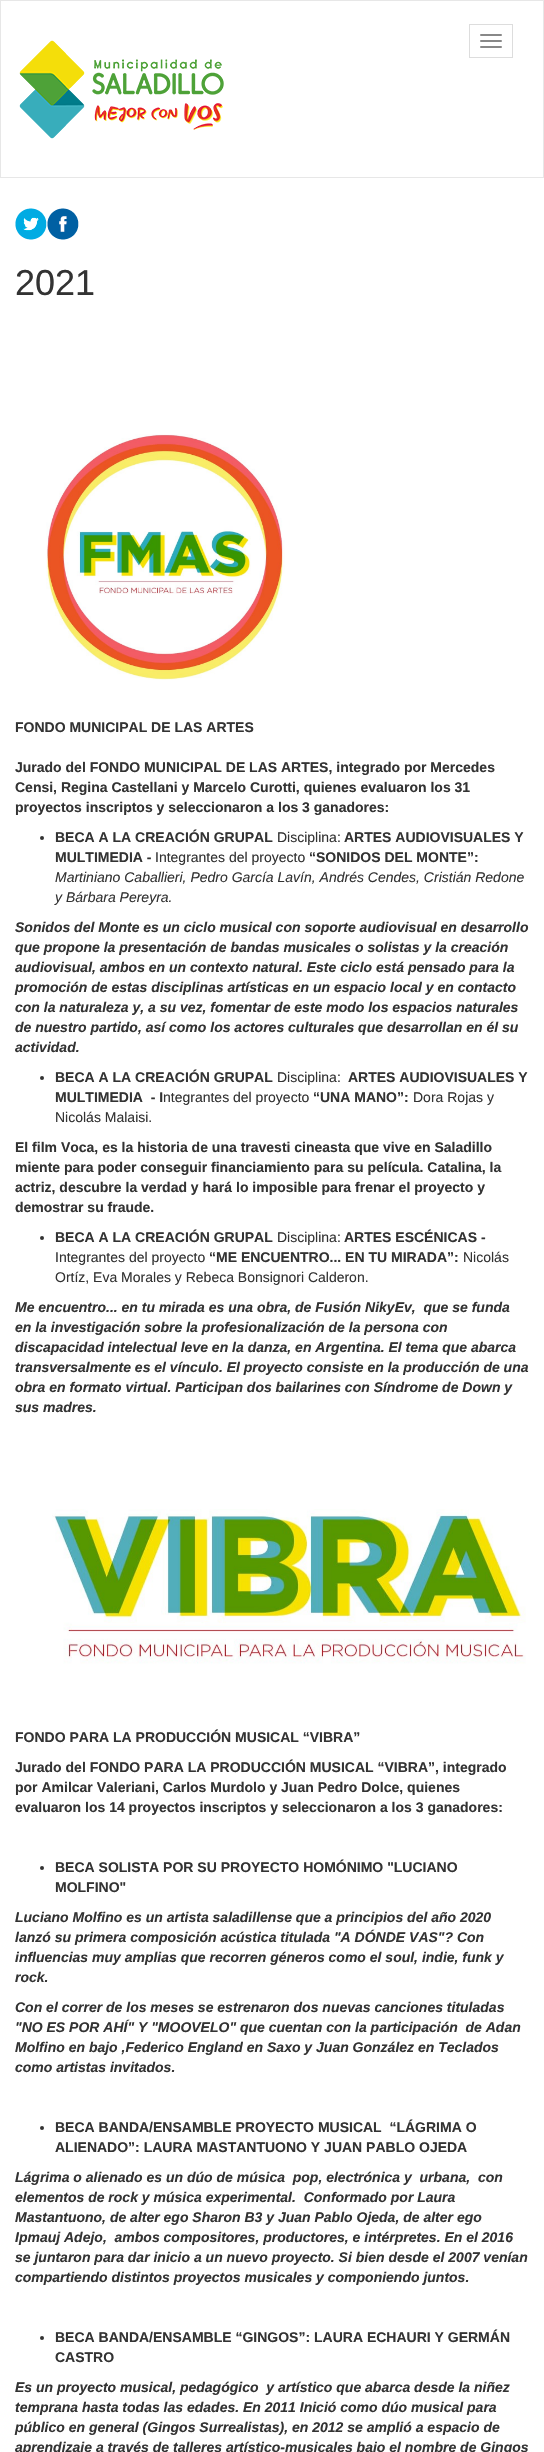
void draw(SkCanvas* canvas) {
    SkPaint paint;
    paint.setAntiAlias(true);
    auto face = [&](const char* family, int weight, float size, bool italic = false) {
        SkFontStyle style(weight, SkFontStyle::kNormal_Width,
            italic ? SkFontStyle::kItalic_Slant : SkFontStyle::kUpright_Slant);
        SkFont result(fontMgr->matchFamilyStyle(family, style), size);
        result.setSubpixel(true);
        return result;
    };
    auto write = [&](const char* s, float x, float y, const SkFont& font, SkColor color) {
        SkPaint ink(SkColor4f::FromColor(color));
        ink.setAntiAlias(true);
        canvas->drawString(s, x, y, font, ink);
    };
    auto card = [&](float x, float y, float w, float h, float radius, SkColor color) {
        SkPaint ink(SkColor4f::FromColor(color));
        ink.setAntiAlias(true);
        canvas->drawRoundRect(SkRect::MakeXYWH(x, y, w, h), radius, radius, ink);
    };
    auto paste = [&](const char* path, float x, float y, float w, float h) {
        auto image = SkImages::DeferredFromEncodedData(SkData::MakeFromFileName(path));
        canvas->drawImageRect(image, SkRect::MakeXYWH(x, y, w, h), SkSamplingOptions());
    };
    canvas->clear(SK_ColorWHITE);
    paint.setStyle(SkPaint::kStroke_Style);
    paint.setStrokeWidth(1);
    paint.setColor(SkColorSetRGB(231, 231, 231));
    canvas->drawRect(SkRect::MakeXYWH(0.5f, 0.5f, 543, 177), paint);
    paste("pic1.png", 19, 40, 205, 99);
    paint.setColor(SkColorSetRGB(221, 221, 221));
    canvas->drawRect(SkRect::MakeXYWH(469.5f, 24.5f, 43, 33), paint);
    card(480, 34, 22, 2, 1, SkColorSetRGB(136, 136, 136));
    card(480, 40, 22, 2, 1, SkColorSetRGB(136, 136, 136));
    card(480, 46, 22, 2, 1, SkColorSetRGB(136, 136, 136));
    paste("pic2.png", 15, 208, 32, 32);
    paste("pic3.png", 47, 208, 32, 32);
    auto kFont1 = face("Liberation Sans", 400, 36);
    write("2021", 15, 295, kFont1, SkColorSetRGB(51, 51, 51));
    paste("pic4.png", 46, 434, 239, 246);
    auto kFont2 = face("Liberation Sans", 700, 14);
    write("FONDO MUNICIPAL DE LAS ARTES", 15, 732, kFont2, SkColorSetRGB(51, 51, 51));
    write("Jurado del FONDO MUNICIPAL DE LAS ARTES, integrado por Mercedes", 15, 772, kFont2, SkColorSetRGB(51, 51, 51));
    write("Censi, Regina Castellani y Marcelo Curotti, quienes evaluaron los 31", 15, 792, kFont2, SkColorSetRGB(51, 51, 51));
    write("proyectos inscriptos y seleccionaron a los 3 ganadores:", 15, 812, kFont2, SkColorSetRGB(51, 51, 51));
    paint.setStyle(SkPaint::kFill_Style);
    paint.setColor(SkColorSetRGB(51, 51, 51));
    canvas->drawCircle(42, 838, 2, paint);
    write("BECA A LA CREACIÓN GRUPAL", 55, 842, kFont2, SkColorSetRGB(51, 51, 51));
    auto kFont3 = face("Liberation Sans", 400, 14);
    write("Disciplina:", 277, 842, kFont3, SkColorSetRGB(51, 51, 51));
    write("ARTES AUDIOVISUALES Y", 344, 842, kFont2, SkColorSetRGB(51, 51, 51));
    write("MULTIMEDIA -", 55, 862, kFont2, SkColorSetRGB(51, 51, 51));
    write("Integrantes del proyecto", 155, 862, kFont3, SkColorSetRGB(51, 51, 51));
    write("“SONIDOS DEL MONTE”:", 309, 862, kFont2, SkColorSetRGB(51, 51, 51));
    auto kFont4 = face("Liberation Sans", 400, 14, true);
    write("Martiniano Caballieri, Pedro García Lavín, Andrés Cendes, Cristián Redone", 55, 882, kFont4, SkColorSetRGB(51, 51, 51));
    write("y Bárbara Pereyra.", 55, 902, kFont4, SkColorSetRGB(51, 51, 51));
    auto kFont5 = face("Liberation Sans", 700, 14, true);
    write("Sonidos del Monte es un ciclo musical con soporte audiovisual en desarrollo", 15, 932, kFont5, SkColorSetRGB(51, 51, 51));
    write("que propone la presentación de bandas musicales o solistas y la creación", 15, 952, kFont5, SkColorSetRGB(51, 51, 51));
    write("audiovisual, ambos en un contexto natural. Este ciclo está pensado para la", 15, 972, kFont5, SkColorSetRGB(51, 51, 51));
    write("promoción de estas disciplinas artísticas en un espacio local y en contacto", 15, 992, kFont5, SkColorSetRGB(51, 51, 51));
    write("con la naturaleza y, a su vez, fomentar de este modo los espacios naturales", 15, 1012, kFont5, SkColorSetRGB(51, 51, 51));
    write("de nuestro partido, así como los actores culturales que desarrollan en él su", 15, 1032, kFont5, SkColorSetRGB(51, 51, 51));
    write("actividad.", 15, 1052, kFont5, SkColorSetRGB(51, 51, 51));
    canvas->drawCircle(42, 1078, 2, paint);
    write("BECA A LA CREACIÓN GRUPAL", 55, 1082, kFont2, SkColorSetRGB(51, 51, 51));
    write("Disciplina:", 277, 1082, kFont3, SkColorSetRGB(51, 51, 51));
    write("ARTES AUDIOVISUALES Y", 348, 1082, kFont2, SkColorSetRGB(51, 51, 51));
    write("MULTIMEDIA  - I", 55, 1102, kFont2, SkColorSetRGB(51, 51, 51));
    write("ntegrantes del proyecto", 163, 1102, kFont3, SkColorSetRGB(51, 51, 51));
    write("“UNA MANO”:", 313, 1102, kFont2, SkColorSetRGB(51, 51, 51));
    write("Dora Rojas y", 413, 1102, kFont3, SkColorSetRGB(51, 51, 51));
    write("Nicolás Malaisi.", 55, 1122, kFont3, SkColorSetRGB(51, 51, 51));
    write("El film Voca, es la historia de una travesti cineasta que vive en Saladillo", 15, 1152, kFont2, SkColorSetRGB(51, 51, 51));
    write("miente para poder conseguir financiamiento para su película. Catalina, la", 15, 1172, kFont2, SkColorSetRGB(51, 51, 51));
    write("actriz, descubre la verdad y hará lo imposible para frenar el proyecto y", 15, 1192, kFont2, SkColorSetRGB(51, 51, 51));
    write("demostrar su fraude.", 15, 1212, kFont2, SkColorSetRGB(51, 51, 51));
    canvas->drawCircle(42, 1238, 2, paint);
    write("BECA A LA CREACIÓN GRUPAL", 55, 1242, kFont2, SkColorSetRGB(51, 51, 51));
    write("Disciplina:", 277, 1242, kFont3, SkColorSetRGB(51, 51, 51));
    write("ARTES ESCÉNICAS -", 344, 1242, kFont2, SkColorSetRGB(51, 51, 51));
    write("Integrantes del proyecto", 55, 1262, kFont3, SkColorSetRGB(51, 51, 51));
    write("“ME ENCUENTRO... EN TU MIRADA”:", 209, 1262, kFont2, SkColorSetRGB(51, 51, 51));
    write("Nicolás", 463, 1262, kFont3, SkColorSetRGB(51, 51, 51));
    write("Ortíz, Eva Morales y Rebeca Bonsignori Calderon.", 55, 1282, kFont3, SkColorSetRGB(51, 51, 51));
    write("Me encuentro... en tu mirada es una obra, de Fusión NikyEv,  que se funda", 15, 1312, kFont5, SkColorSetRGB(51, 51, 51));
    write("en la investigación sobre la profesionalización de la persona con", 15, 1332, kFont5, SkColorSetRGB(51, 51, 51));
    write("discapacidad intelectual leve en la danza, en Argentina. El tema que abarca", 15, 1352, kFont5, SkColorSetRGB(51, 51, 51));
    write("transversalmente es el vínculo. El proyecto consiste en la producción de una", 15, 1372, kFont5, SkColorSetRGB(51, 51, 51));
    write("obra en formato virtual. Participan dos bailarines con Síndrome de Down y", 15, 1392, kFont5, SkColorSetRGB(51, 51, 51));
    write("sus madres.", 15, 1412, kFont5, SkColorSetRGB(51, 51, 51));
    paste("pic5.png", 52, 1509, 474, 155);
    write("FONDO PARA LA PRODUCCIÓN MUSICAL “VIBRA”", 15, 1742, kFont2, SkColorSetRGB(51, 51, 51));
    write("Jurado del FONDO PARA LA PRODUCCIÓN MUSICAL “VIBRA”, integrado", 15, 1772, kFont2, SkColorSetRGB(51, 51, 51));
    write("por Amilcar Valeriani, Carlos Murdolo y Juan Pedro Dolce, quienes", 15, 1792, kFont2, SkColorSetRGB(51, 51, 51));
    write("evaluaron los 14 proyectos inscriptos y seleccionaron a los 3 ganadores:", 15, 1812, kFont2, SkColorSetRGB(51, 51, 51));
    canvas->drawCircle(42, 1868, 2, paint);
    write("BECA SOLISTA POR SU PROYECTO HOMÓNIMO \"LUCIANO", 55, 1872, kFont2, SkColorSetRGB(51, 51, 51));
    write("MOLFINO\"", 55, 1892, kFont2, SkColorSetRGB(51, 51, 51));
    write("Luciano Molfino es un artista saladillense que a principios del año 2020", 15, 1922, kFont5, SkColorSetRGB(51, 51, 51));
    write("lanzó su primera composición acústica titulada \"A DÓNDE VAS\"? Con", 15, 1942, kFont5, SkColorSetRGB(51, 51, 51));
    write("influencias muy amplias que recorren géneros como el soul, indie, funk y", 15, 1962, kFont5, SkColorSetRGB(51, 51, 51));
    write("rock.", 15, 1982, kFont5, SkColorSetRGB(51, 51, 51));
    write("Con el correr de los meses se estrenaron dos nuevas canciones tituladas", 15, 2012, kFont5, SkColorSetRGB(51, 51, 51));
    write("\"NO ES POR AHÍ\" Y \"MOOVELO\" que cuentan con la participación  de Adan", 15, 2032, kFont5, SkColorSetRGB(51, 51, 51));
    write("Molfino en bajo ,Federico England en Saxo y Juan González en Teclados", 15, 2052, kFont5, SkColorSetRGB(51, 51, 51));
    write("como artistas invitados.", 15, 2072, kFont5, SkColorSetRGB(51, 51, 51));
    canvas->drawCircle(42, 2128, 2, paint);
    write("BECA BANDA/ENSAMBLE PROYECTO MUSICAL  “LÁGRIMA O", 55, 2132, kFont2, SkColorSetRGB(51, 51, 51));
    write("ALIENADO”: LAURA MASTANTUONO Y JUAN PABLO OJEDA", 55, 2152, kFont2, SkColorSetRGB(51, 51, 51));
    write("Lágrima o alienado es un dúo de música  pop, electrónica y  urbana,  con", 15, 2182, kFont5, SkColorSetRGB(51, 51, 51));
    write("elementos de rock y música experimental.  Conformado por Laura", 15, 2202, kFont5, SkColorSetRGB(51, 51, 51));
    write("Mastantuono, de alter ego Sharon B3 y Juan Pablo Ojeda, de alter ego", 15, 2222, kFont5, SkColorSetRGB(51, 51, 51));
    write("Ipmauj Adejo,  ambos compositores, productores, e intérpretes. En el 2016", 15, 2242, kFont5, SkColorSetRGB(51, 51, 51));
    write("se juntaron para dar inicio a un nuevo proyecto. Si bien desde el 2007 venían", 15, 2262, kFont5, SkColorSetRGB(51, 51, 51));
    write("compartiendo distintos proyectos musicales y componiendo juntos.", 15, 2282, kFont5, SkColorSetRGB(51, 51, 51));
    canvas->drawCircle(42, 2338, 2, paint);
    write("BECA BANDA/ENSAMBLE “GINGOS”: LAURA ECHAURI Y GERMÁN", 55, 2342, kFont2, SkColorSetRGB(51, 51, 51));
    write("CASTRO", 55, 2362, kFont2, SkColorSetRGB(51, 51, 51));
    write("Es un proyecto musical, pedagógico  y artístico que abarca desde la niñez", 15, 2392, kFont5, SkColorSetRGB(51, 51, 51));
    write("temprana hasta todas las edades. En 2011 Inició como dúo musical para", 15, 2412, kFont5, SkColorSetRGB(51, 51, 51));
    write("público en general (Gingos Surrealistas), en 2012 se amplió a espacio de", 15, 2432, kFont5, SkColorSetRGB(51, 51, 51));
    write("aprendizaje a través de talleres artístico-musicales bajo el nombre de Gingos", 15, 2452, kFont5, SkColorSetRGB(51, 51, 51));
}
